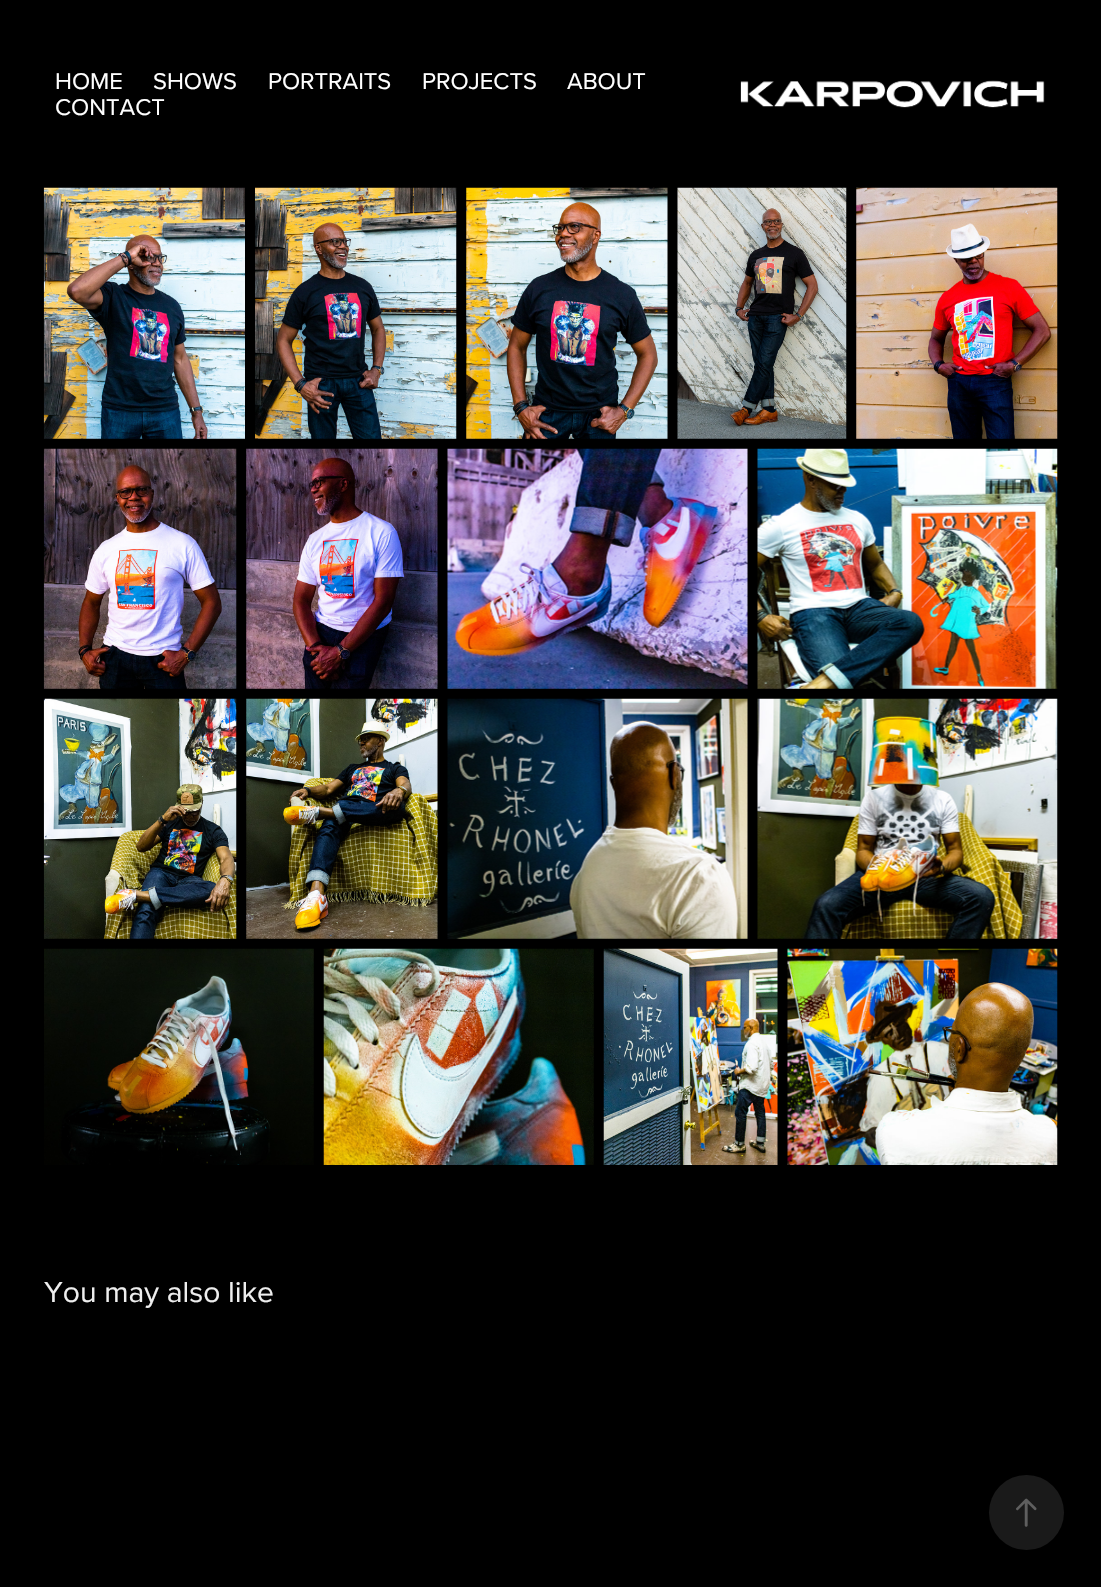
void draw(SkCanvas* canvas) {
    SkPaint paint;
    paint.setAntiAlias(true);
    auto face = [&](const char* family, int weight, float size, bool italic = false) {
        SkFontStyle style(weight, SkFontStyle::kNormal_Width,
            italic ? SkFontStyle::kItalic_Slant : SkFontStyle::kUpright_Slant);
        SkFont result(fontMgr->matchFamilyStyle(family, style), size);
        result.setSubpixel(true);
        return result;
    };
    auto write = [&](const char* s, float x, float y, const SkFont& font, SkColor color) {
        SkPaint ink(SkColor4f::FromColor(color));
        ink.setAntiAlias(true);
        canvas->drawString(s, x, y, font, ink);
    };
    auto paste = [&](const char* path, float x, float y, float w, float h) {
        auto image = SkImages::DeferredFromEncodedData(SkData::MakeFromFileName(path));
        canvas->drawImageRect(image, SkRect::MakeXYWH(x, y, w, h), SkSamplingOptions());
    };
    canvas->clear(SK_ColorBLACK);
    auto kFont1 = face("Proxima Nova", 400, 23.75f);
    write("HOME", 55, 89, kFont1, SK_ColorWHITE);
    write("SHOWS", 153, 89, kFont1, SK_ColorWHITE);
    write("PORTRAITS", 268, 89, kFont1, SK_ColorWHITE);
    write("PROJECTS", 422, 89, kFont1, SK_ColorWHITE);
    write("ABOUT", 567, 89, kFont1, SK_ColorWHITE);
    write("CONTACT", 55, 115, kFont1, SK_ColorWHITE);
    paste("pic1.png", 740, 80, 305, 28);
    paste("pic2.png", 43, 187, 202, 252);
    paste("pic3.png", 255, 187, 202, 252);
    paste("pic4.png", 466, 187, 202, 252);
    paste("pic5.png", 677, 187, 170, 252);
    paste("pic6.png", 856, 187, 202, 252);
    paste("pic7.png", 43, 448, 194, 241);
    paste("pic8.png", 246, 448, 192, 241);
    paste("pic9.png", 447, 448, 301, 241);
    paste("pic10.png", 757, 448, 301, 241);
    paste("pic11.png", 43, 698, 194, 241);
    paste("pic12.png", 246, 698, 192, 241);
    paste("pic13.png", 447, 698, 301, 241);
    paste("pic14.png", 757, 698, 301, 241);
    paste("pic15.png", 44, 948, 270, 217);
    paste("pic16.png", 323, 948, 271, 217);
    paste("pic17.png", 603, 948, 175, 217);
    paste("pic18.png", 787, 948, 271, 217);
    auto kFont2 = face("Proxima Nova", 400, 30);
    write("You may also like", 44, 1302, kFont2, SkColorSetRGB(238, 238, 238));
    paint.setColor(SkColorSetRGB(26, 26, 26));
    canvas->drawCircle(1026.5f, 1512.5f, 37.5f, paint);
    paste("pic19.png", 1016, 1498, 21, 29);
}
